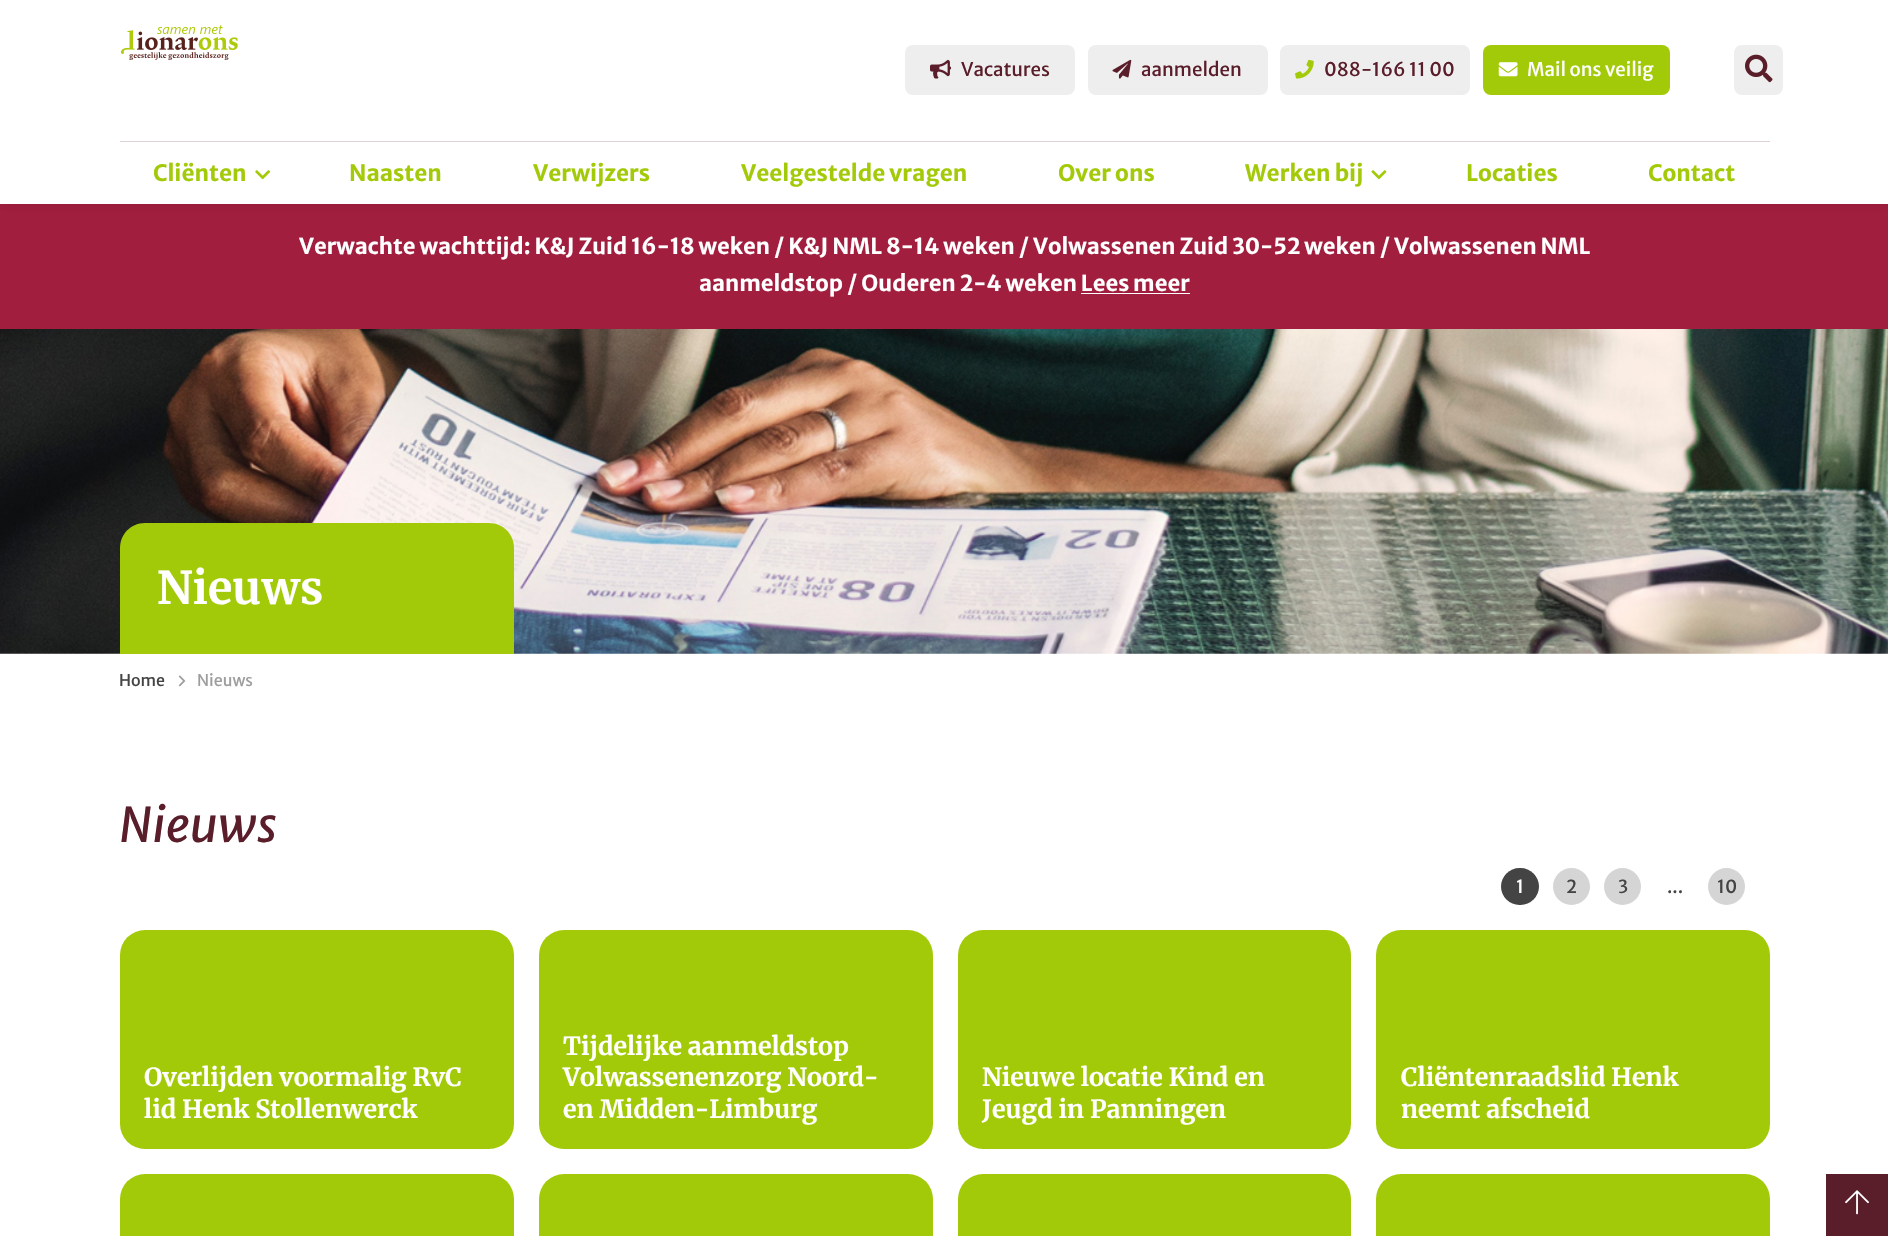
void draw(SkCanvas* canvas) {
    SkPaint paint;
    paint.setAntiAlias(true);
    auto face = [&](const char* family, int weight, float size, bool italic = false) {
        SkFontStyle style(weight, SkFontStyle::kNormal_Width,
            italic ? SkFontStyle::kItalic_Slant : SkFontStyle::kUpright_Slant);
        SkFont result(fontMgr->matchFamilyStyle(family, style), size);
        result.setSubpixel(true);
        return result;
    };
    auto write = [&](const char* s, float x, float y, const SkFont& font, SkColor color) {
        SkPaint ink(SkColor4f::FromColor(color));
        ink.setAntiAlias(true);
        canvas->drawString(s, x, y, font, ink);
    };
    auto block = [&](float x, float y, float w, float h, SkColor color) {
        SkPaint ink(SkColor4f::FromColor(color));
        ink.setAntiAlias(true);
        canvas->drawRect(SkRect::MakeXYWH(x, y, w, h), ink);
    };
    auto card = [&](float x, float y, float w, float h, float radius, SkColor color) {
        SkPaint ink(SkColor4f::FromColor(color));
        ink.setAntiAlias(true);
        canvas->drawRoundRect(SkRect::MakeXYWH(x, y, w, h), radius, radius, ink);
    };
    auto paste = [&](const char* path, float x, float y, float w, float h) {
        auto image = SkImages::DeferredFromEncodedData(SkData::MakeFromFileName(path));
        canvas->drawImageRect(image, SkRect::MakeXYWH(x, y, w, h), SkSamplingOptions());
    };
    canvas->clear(SK_ColorWHITE);
    block(0, 204, 1888, 125, SkColorSetRGB(161, 30, 62));
    paint.setColor(SkColorSetARGB(26, 0, 0, 0));
    paint.setMaskFilter(SkMaskFilter::MakeBlur(kNormal_SkBlurStyle, 6));
    canvas->drawRect(SkRect::MakeXYWH(0, 0, 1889, 204), paint);
    paint.setMaskFilter(nullptr);
    block(0, 0, 1888, 204, SK_ColorWHITE);
    paste("pic1.png", 121, 25, 117, 35);
    card(905, 45, 170, 50, 8, SkColorSetRGB(238, 238, 238));
    paste("pic2.png", 930, 59, 22, 20);
    auto kFont1 = face("Merriweather Sans", 400, 18.75f);
    write("Vacatures", 961, 76, kFont1, SkColorSetRGB(90, 29, 42));
    card(1088, 45, 180, 50, 8, SkColorSetRGB(238, 238, 238));
    paste("pic3.png", 1112, 59, 20, 20);
    write("aanmelden", 1141, 76, kFont1, SkColorSetRGB(90, 29, 42));
    card(1280, 45, 190, 50, 8, SkColorSetRGB(238, 238, 238));
    paste("pic4.png", 1295, 59, 19, 20);
    write("088-166 11 00", 1324, 76, kFont1, SkColorSetRGB(90, 29, 42));
    card(1483, 45, 187, 50, 8, SkColorSetRGB(163, 202, 8));
    paste("pic5.png", 1498, 62, 20, 15);
    write("Mail ons veilig", 1527, 76, kFont1, SK_ColorWHITE);
    card(1734, 45, 49, 50, 8, SkColorSetRGB(238, 238, 238));
    paste("pic6.png", 1745, 54, 28, 29);
    block(120, 141, 1650, 1, SkColorSetRGB(222, 210, 212));
    auto kFont2 = face("Merriweather Sans", 700, 22.5f);
    write("Cliënten", 153, 181, kFont2, SkColorSetRGB(163, 202, 8));
    paste("pic7.png", 255, 170, 16, 10);
    write("Naasten", 349, 181, kFont2, SkColorSetRGB(163, 202, 8));
    write("Verwijzers", 533, 181, kFont2, SkColorSetRGB(163, 202, 8));
    write("Veelgestelde vragen", 741, 181, kFont2, SkColorSetRGB(163, 202, 8));
    write("Over ons", 1058, 181, kFont2, SkColorSetRGB(163, 202, 8));
    write("Werken bij", 1245, 181, kFont2, SkColorSetRGB(163, 202, 8));
    paste("pic8.png", 1371, 170, 16, 10);
    write("Locaties", 1466, 181, kFont2, SkColorSetRGB(163, 202, 8));
    write("Contact", 1648, 181, kFont2, SkColorSetRGB(163, 202, 8));
    auto kFont3 = face("Merriweather Sans", 700, 22);
    write("Verwachte wachttijd: K&J Zuid 16-18 weken / K&J NML 8-14 weken / Volwassenen Zuid 30-52 weken / Volwassenen NML", 299, 254, kFont3, SK_ColorWHITE);
    write("aanmeldstop / Ouderen 2-4 weken Lees meer", 699, 291, kFont3, SK_ColorWHITE);
    block(1081, 293, 109, 1, SK_ColorWHITE);
    paste("pic9.png", 0, 329, 1888, 325);
    paint.setColor(SkColorSetRGB(163, 202, 8));
    canvas->drawPath(SkPathBuilder().moveTo(145, 523).lineTo(489, 523).cubicTo(503, 523, 514, 534, 514, 548).lineTo(514, 654).lineTo(120, 654).lineTo(120, 548).cubicTo(120, 534, 131, 523, 145, 523).close().detach(), paint);
    auto kFont4 = face("Merriweather", 300, 45);
    write("Nieuws", 157, 604, kFont4, SK_ColorWHITE);
    auto kFont5 = face("Merriweather Sans", 400, 16);
    write("Home", 119, 686, kFont5, SkColorSetRGB(68, 68, 68));
    paste("pic10.png", 178, 675, 8, 12);
    write("Nieuws", 197, 686, kFont5, SkColorSetRGB(158, 158, 158));
    auto kFont6 = face("Merriweather Sans", 400, 47.5f, true);
    write("Nieuws", 119, 842, kFont6, SkColorSetRGB(90, 29, 42));
    card(1501, 868, 38, 37, 18.5f, SkColorSetRGB(68, 68, 68));
    auto kFont7 = face("Merriweather Sans", 400, 18);
    write("1", 1516, 893, kFont7, SK_ColorWHITE);
    paint.setColor(SkColorSetRGB(213, 213, 213));
    canvas->drawCircle(1571.5f, 886.5f, 18.5f, paint);
    write("2", 1566, 893, kFont7, SkColorSetRGB(68, 68, 68));
    canvas->drawCircle(1622.5f, 886.5f, 18.5f, paint);
    write("3", 1618, 893, kFont7, SkColorSetRGB(68, 68, 68));
    write("...", 1667, 893, kFont7, SkColorSetRGB(68, 68, 68));
    canvas->drawCircle(1726.5f, 886.5f, 18.5f, paint);
    write("10", 1717, 893, kFont7, SkColorSetRGB(68, 68, 68));
    card(120, 930, 394, 219, 25, SkColorSetRGB(163, 202, 8));
    auto kFont8 = face("Merriweather", 300, 25);
    write("Overlijden voormalig RvC", 144, 1086, kFont8, SK_ColorWHITE);
    write("lid Henk Stollenwerck", 144, 1118, kFont8, SK_ColorWHITE);
    card(539, 930, 394, 219, 25, SkColorSetRGB(163, 202, 8));
    write("Tijdelijke aanmeldstop", 563, 1055, kFont8, SK_ColorWHITE);
    write("Volwassenenzorg Noord-", 563, 1086, kFont8, SK_ColorWHITE);
    write("en Midden-Limburg", 563, 1118, kFont8, SK_ColorWHITE);
    card(958, 930, 393, 219, 25, SkColorSetRGB(163, 202, 8));
    write("Nieuwe locatie Kind en", 982, 1086, kFont8, SK_ColorWHITE);
    write("Jeugd in Panningen", 982, 1118, kFont8, SK_ColorWHITE);
    card(1376, 930, 394, 219, 25, SkColorSetRGB(163, 202, 8));
    write("Cliëntenraadslid Henk", 1401, 1086, kFont8, SK_ColorWHITE);
    write("neemt afscheid", 1401, 1118, kFont8, SK_ColorWHITE);
    card(120, 1174, 394, 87, 25, SkColorSetRGB(163, 202, 8));
    card(539, 1174, 394, 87, 25, SkColorSetRGB(163, 202, 8));
    card(958, 1174, 393, 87, 25, SkColorSetRGB(163, 202, 8));
    card(1376, 1174, 394, 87, 25, SkColorSetRGB(163, 202, 8));
    block(1826, 1174, 62, 62, SkColorSetRGB(90, 29, 42));
    paste("pic11.png", 1845, 1190, 24, 25);
}
